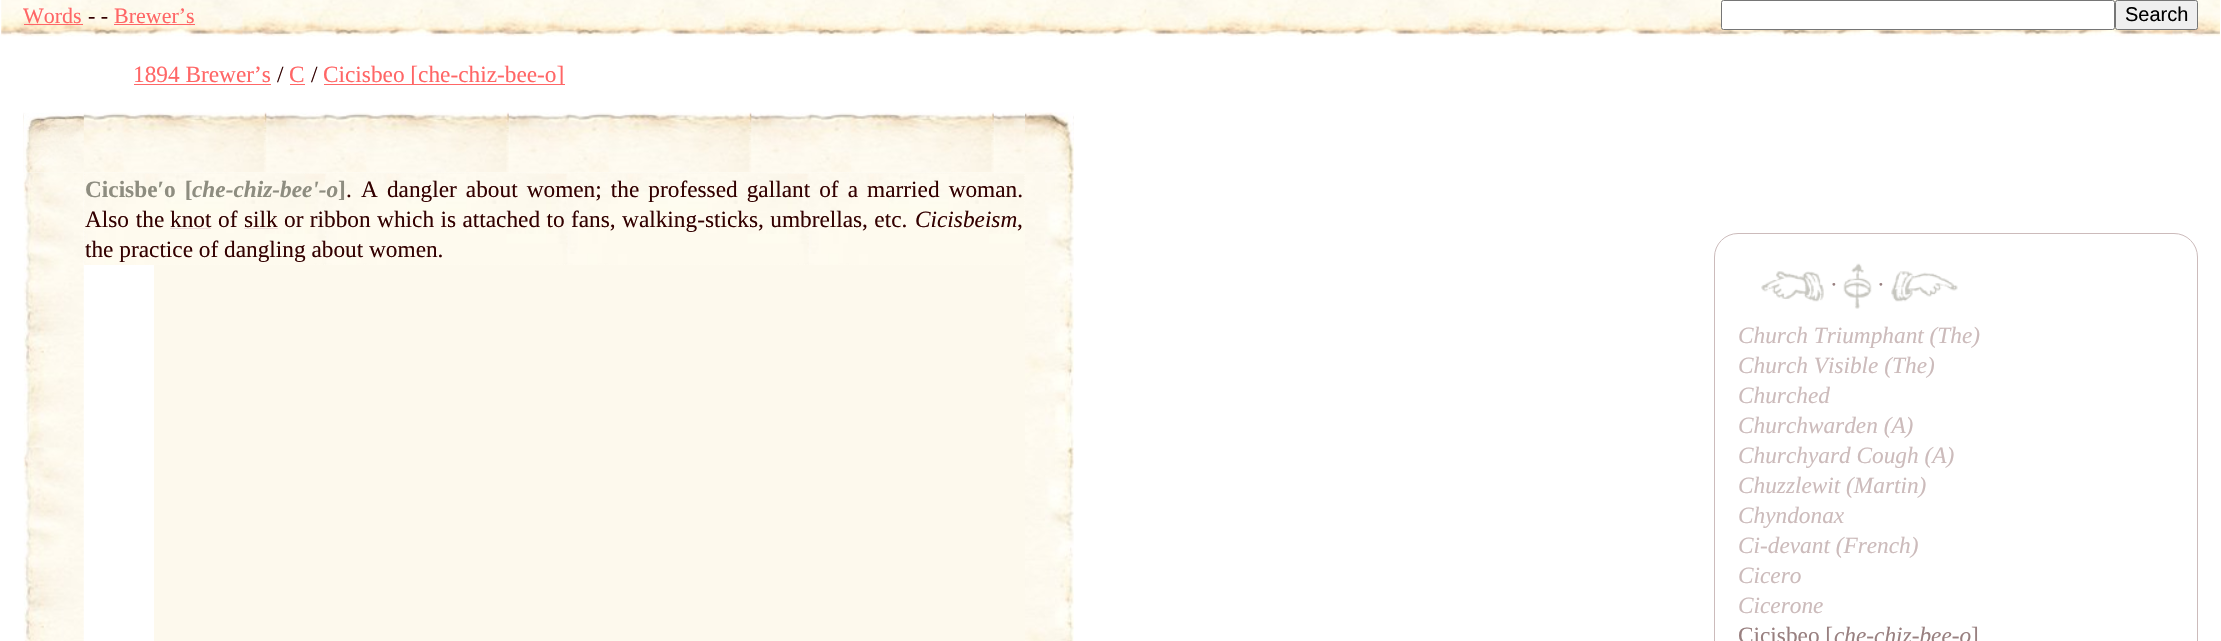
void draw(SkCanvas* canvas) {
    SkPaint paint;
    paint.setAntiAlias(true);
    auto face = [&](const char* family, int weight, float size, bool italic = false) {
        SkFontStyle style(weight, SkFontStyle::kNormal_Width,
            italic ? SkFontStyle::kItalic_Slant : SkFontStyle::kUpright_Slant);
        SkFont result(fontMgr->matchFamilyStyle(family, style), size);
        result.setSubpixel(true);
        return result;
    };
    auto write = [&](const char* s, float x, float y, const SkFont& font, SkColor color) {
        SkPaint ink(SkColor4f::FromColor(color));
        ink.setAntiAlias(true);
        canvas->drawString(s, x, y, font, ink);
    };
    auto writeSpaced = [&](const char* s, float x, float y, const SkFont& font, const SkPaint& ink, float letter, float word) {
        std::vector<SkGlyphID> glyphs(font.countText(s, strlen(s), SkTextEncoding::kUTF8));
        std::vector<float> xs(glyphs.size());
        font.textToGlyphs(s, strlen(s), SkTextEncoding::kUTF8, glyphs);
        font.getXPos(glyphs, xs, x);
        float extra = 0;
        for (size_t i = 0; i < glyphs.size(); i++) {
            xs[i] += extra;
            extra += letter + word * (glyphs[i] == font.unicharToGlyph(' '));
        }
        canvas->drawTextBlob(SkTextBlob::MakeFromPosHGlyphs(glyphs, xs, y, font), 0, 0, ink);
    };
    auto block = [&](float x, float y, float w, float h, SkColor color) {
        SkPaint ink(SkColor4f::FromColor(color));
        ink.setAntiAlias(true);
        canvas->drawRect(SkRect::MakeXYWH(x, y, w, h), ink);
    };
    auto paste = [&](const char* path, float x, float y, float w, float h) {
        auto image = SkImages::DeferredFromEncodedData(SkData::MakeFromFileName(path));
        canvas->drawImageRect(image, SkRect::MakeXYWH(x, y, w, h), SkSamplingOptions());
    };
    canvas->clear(SK_ColorWHITE);
    paste("pic1.png", 1, 0, 2219, 37);
    auto kFont1 = face("Liberation Serif", 400, 22);
    write("Words", 23, 23, kFont1, SkColorSetRGB(255, 102, 102));
    block(24, 24, 59, 1, SkColorSetRGB(255, 102, 102));
    write("- -", 88, 23, kFont1, SkColorSetRGB(51, 0, 0));
    write("Brewer’s", 114, 23, kFont1, SkColorSetRGB(255, 102, 102));
    block(114, 24, 81, 1, SkColorSetRGB(255, 102, 102));
    paint.setColor(SK_ColorWHITE);
    canvas->drawRoundRect(SkRect::MakeXYWH(1721.5f, 0.5f, 393, 29), 2, 2, paint);
    paint.setStyle(SkPaint::kStroke_Style);
    paint.setStrokeWidth(1);
    paint.setColor(SkColorSetRGB(118, 118, 118));
    canvas->drawRoundRect(SkRect::MakeXYWH(1721.5f, 0.5f, 393, 29), 2, 2, paint);
    paint.setStyle(SkPaint::kFill_Style);
    paint.setColor(SkColorSetRGB(239, 239, 239));
    canvas->drawRoundRect(SkRect::MakeXYWH(2115.5f, 0.5f, 82, 29), 2, 2, paint);
    paint.setStyle(SkPaint::kStroke_Style);
    paint.setColor(SkColorSetRGB(118, 118, 118));
    canvas->drawRoundRect(SkRect::MakeXYWH(2115.5f, 0.5f, 82, 29), 2, 2, paint);
    auto kFont2 = face("Liberation Sans", 400, 20);
    write("Search", 2125, 21, kFont2, SK_ColorBLACK);
    auto kFont3 = face("Liberation Serif", 400, 23.3f);
    write("1894 Brewer’s", 133, 82, kFont3, SkColorSetRGB(255, 102, 102));
    block(134, 84, 137, 1, SkColorSetRGB(255, 102, 102));
    write("/", 277, 82, kFont3, SkColorSetRGB(51, 0, 0));
    write("C", 289, 82, kFont3, SkColorSetRGB(255, 102, 102));
    block(290, 84, 15, 1, SkColorSetRGB(255, 102, 102));
    write("/", 311, 82, kFont3, SkColorSetRGB(51, 0, 0));
    block(324, 84, 241, 1, SkColorSetRGB(255, 102, 102));
    write("Cicisbeo [che-chiz-bee-o]", 323, 82, kFont3, SkColorSetRGB(255, 102, 102));
    paste("pic4.png", 23, 112, 1051, 61);
    paste("pic5.png", 23, 172, 61, 469);
    paste("pic7.png", 84, 172, 941, 93);
    paint.setStrokeWidth(1.2f);
    paint.setColor(SkColorSetRGB(255, 251, 240));
    paint.setPathEffect(SkDashPathEffect::Make({{1.25f, 1.25f}}, 0));
    canvas->drawPath(SkPathBuilder().moveTo(84, 173).lineTo(1025, 173).detach(), paint);
    paint.setPathEffect(nullptr);
    paste("pic6.png", 1025, 172, 49, 469);
    paint.setPathEffect(SkDashPathEffect::Make({{1.25f, 1.25f}}, 0));
    canvas->drawPath(SkPathBuilder().moveTo(1024.5f, 172.5f).lineTo(1024.5f, 265).detach(), paint);
    paint.setPathEffect(nullptr);
    paint.setPathEffect(SkDashPathEffect::Make({{1.25f, 1.25f}}, 0));
    canvas->drawPath(SkPathBuilder().moveTo(84, 264.5f).lineTo(1025, 264.5f).detach(), paint);
    paint.setPathEffect(nullptr);
    paint.setPathEffect(SkDashPathEffect::Make({{1.25f, 1.25f}}, 0));
    canvas->drawPath(SkPathBuilder().moveTo(84.5f, 172.5f).lineTo(84.5f, 265).detach(), paint);
    paint.setPathEffect(nullptr);
    paste("pic2.png", 23, 113, 61, 60);
    paste("pic3.png", 1025, 112, 49, 61);
    auto kFont4 = face("Liberation Serif", 700, 23.3f);
    paint.setStyle(SkPaint::kFill_Style);
    paint.setColor(SkColorSetRGB(142, 141, 128));
    writeSpaced("Cicisbeʹo [", 85, 197, kFont4, paint, 0, 3.25f);
    auto kFont5 = face("Liberation Serif", 700, 23.3f, true);
    write("che-chiz-beeʹ-o", 192, 197, kFont5, SkColorSetRGB(142, 141, 128));
    write("]", 338, 197, kFont4, SkColorSetRGB(142, 141, 128));
    write(".", 346, 197, kFont3, SkColorSetRGB(51, 0, 0));
    paint.setColor(SkColorSetRGB(51, 0, 0));
    writeSpaced("A dangler about women; the professed gallant of a married woman.", 361, 197, kFont3, paint, 0, 3.25f);
    writeSpaced("Also the", 85, 227, kFont3, paint, 0, 1);
    write("knot", 170, 227, kFont3, SkColorSetRGB(51, 0, 0));
    block(170, 228, 41, 1, SkColorSetRGB(238, 221, 221));
    write("of", 218, 227, kFont3, SkColorSetRGB(51, 0, 0));
    write("silk", 244, 227, kFont3, SkColorSetRGB(51, 0, 0));
    block(244, 228, 34, 1, SkColorSetRGB(238, 221, 221));
    writeSpaced("or ribbon which is attached to fans, walking-sticks, umbrellas, etc.", 284, 227, kFont3, paint, 0, 0.6f);
    auto kFont6 = face("Liberation Serif", 400, 23.3f, true);
    write("Cicisbeism", 915, 227, kFont6, SkColorSetRGB(51, 0, 0));
    write(",", 1017, 227, kFont3, SkColorSetRGB(51, 0, 0));
    write("the practice of dangling about women.", 85, 257, kFont3, SkColorSetRGB(51, 0, 0));
    block(154, 265, 871, 376, SkColorSetRGB(253, 249, 237));
    paint.setStyle(SkPaint::kStroke_Style);
    paint.setStrokeWidth(1);
    paint.setColor(SkColorSetRGB(204, 187, 187));
    canvas->drawRoundRect(SkRect::MakeXYWH(1714.5f, 233.5f, 483, 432), 23.5f, 23.5f, paint);
    paste("pic8.png", 1761, 271, 63, 31);
    write("·", 1830, 292, kFont3, SkColorSetRGB(153, 128, 128));
    paste("pic9.png", 1843, 263, 29, 46);
    write("·", 1877, 292, kFont3, SkColorSetRGB(153, 128, 128));
    paste("pic10.png", 1891, 271, 67, 31);
    write("Church Triumphant (The)", 1738, 343, kFont6, SkColorSetRGB(204, 187, 187));
    write("Church Visible (The)", 1738, 373, kFont6, SkColorSetRGB(204, 187, 187));
    write("Churched", 1738, 403, kFont6, SkColorSetRGB(204, 187, 187));
    write("Churchwarden (A)", 1738, 433, kFont6, SkColorSetRGB(204, 187, 187));
    write("Churchyard Cough (A)", 1738, 463, kFont6, SkColorSetRGB(204, 187, 187));
    write("Chuzzlewit (Martin)", 1738, 493, kFont6, SkColorSetRGB(204, 187, 187));
    write("Chyndonax", 1738, 523, kFont6, SkColorSetRGB(204, 187, 187));
    write("Ci-devant (French)", 1738, 553, kFont6, SkColorSetRGB(204, 187, 187));
    write("Cicero", 1738, 583, kFont6, SkColorSetRGB(204, 187, 187));
    write("Cicerone", 1738, 613, kFont6, SkColorSetRGB(204, 187, 187));
    write("Cicisbeo [", 1738, 643, kFont3, SkColorSetRGB(153, 128, 128));
    write("che-chiz-bee-o", 1834, 643, kFont6, SkColorSetRGB(153, 128, 128));
    write("]", 1971, 643, kFont3, SkColorSetRGB(153, 128, 128));
}
